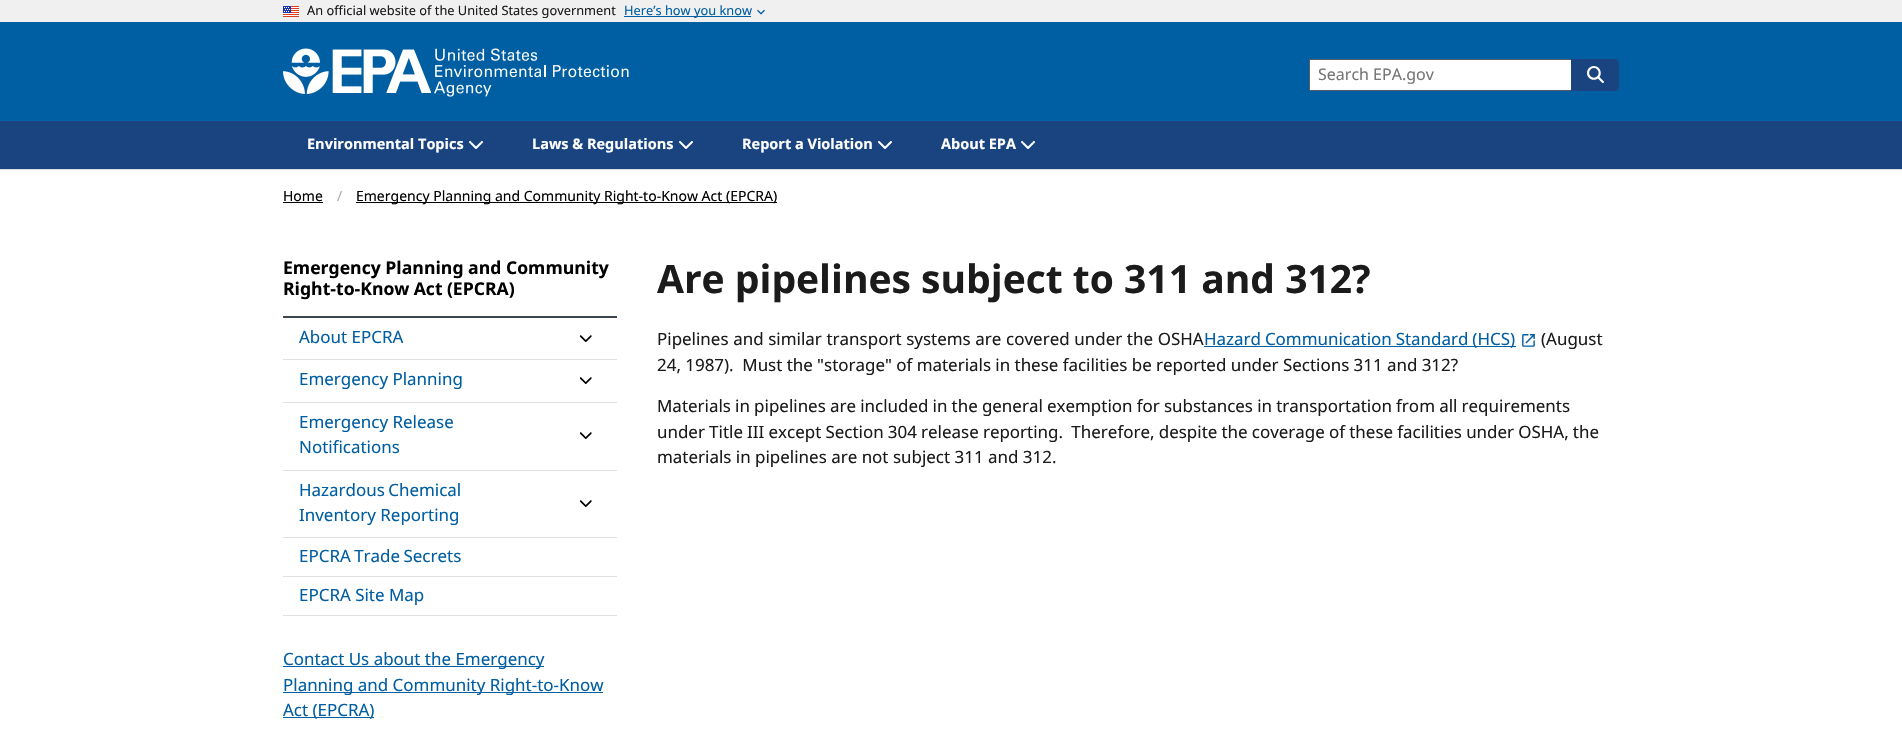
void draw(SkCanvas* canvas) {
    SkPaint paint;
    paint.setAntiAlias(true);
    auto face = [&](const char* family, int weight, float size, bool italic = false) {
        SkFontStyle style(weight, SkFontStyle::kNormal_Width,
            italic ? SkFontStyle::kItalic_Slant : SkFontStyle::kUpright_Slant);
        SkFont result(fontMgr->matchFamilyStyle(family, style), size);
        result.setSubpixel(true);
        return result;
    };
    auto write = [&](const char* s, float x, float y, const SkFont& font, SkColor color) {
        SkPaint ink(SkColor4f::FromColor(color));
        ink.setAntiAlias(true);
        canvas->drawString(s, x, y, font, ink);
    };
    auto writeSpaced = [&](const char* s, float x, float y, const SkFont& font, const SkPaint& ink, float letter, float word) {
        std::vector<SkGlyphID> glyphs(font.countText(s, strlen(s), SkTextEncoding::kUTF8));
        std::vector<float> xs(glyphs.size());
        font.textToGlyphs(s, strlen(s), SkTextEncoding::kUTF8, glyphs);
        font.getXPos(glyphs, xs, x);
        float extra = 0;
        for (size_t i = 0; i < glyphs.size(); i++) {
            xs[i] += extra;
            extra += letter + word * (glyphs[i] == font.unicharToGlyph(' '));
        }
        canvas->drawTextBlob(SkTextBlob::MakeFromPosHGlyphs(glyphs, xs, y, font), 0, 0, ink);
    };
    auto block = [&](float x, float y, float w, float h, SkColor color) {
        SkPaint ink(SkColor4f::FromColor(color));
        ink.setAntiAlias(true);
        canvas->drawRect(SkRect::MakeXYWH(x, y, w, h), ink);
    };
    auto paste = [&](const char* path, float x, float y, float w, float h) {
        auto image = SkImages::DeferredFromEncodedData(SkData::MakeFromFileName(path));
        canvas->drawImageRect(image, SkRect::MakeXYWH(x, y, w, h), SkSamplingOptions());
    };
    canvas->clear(SK_ColorWHITE);
    block(0, 0, 1902, 22, SkColorSetRGB(240, 240, 240));
    paste("pic1.png", 283, 6, 16, 11);
    auto kFont1 = face("Noto Sans Arabic", 400, 12.8f);
    write("An official website of the United States government", 307, 15, kFont1, SkColorSetRGB(27, 27, 27));
    block(624, 16, 127, 1, SkColorSetRGB(0, 94, 162));
    write("Here’s how you know", 624, 15, kFont1, SkColorSetRGB(0, 94, 162));
    paste("pic2.png", 757, 9, 8, 6);
    block(0, 22, 1902, 99, SkColorSetRGB(0, 94, 162));
    paste("pic3.png", 283, 48, 148, 46);
    paste("pic4.png", 434, 48, 195, 49);
    block(1310, 60, 261, 30, SK_ColorWHITE);
    block(1309, 59, 262, 1, SkColorSetRGB(86, 92, 101));
    block(1309, 90, 262, 1, SkColorSetRGB(86, 92, 101));
    block(1309, 59, 1, 32, SkColorSetRGB(86, 92, 101));
    auto kFont2 = face("Noto Sans Arabic", 400, 16);
    write("Search EPA.gov", 1318, 80, kFont2, SkColorSetRGB(117, 117, 117));
    paint.setColor(SkColorSetRGB(26, 68, 128));
    canvas->drawPath(SkPathBuilder().moveTo(1571, 59).lineTo(1615, 59).cubicTo(1617, 59, 1619, 61, 1619, 63).lineTo(1619, 87).cubicTo(1619, 89, 1617, 91, 1615, 91).lineTo(1571, 91).close().detach(), paint);
    paste("pic5.png", 1587, 66, 17, 17);
    block(0, 121, 1902, 48, SkColorSetRGB(26, 68, 128));
    auto kFont3 = face("Noto Sans Arabic", 700, 14.5f);
    write("Environmental Topics", 307, 149, kFont3, SK_ColorWHITE);
    paste("pic6.png", 469, 141, 14, 8);
    write("Laws & Regulations", 532, 149, kFont3, SK_ColorWHITE);
    paste("pic6.png", 679, 141, 14, 8);
    write("Report a Violation", 742, 149, kFont3, SK_ColorWHITE);
    paste("pic6.png", 878, 141, 14, 8);
    write("About EPA", 941, 149, kFont3, SK_ColorWHITE);
    paste("pic6.png", 1021, 141, 14, 8);
    block(0, 169, 1902, 1, SkColorSetRGB(223, 225, 226));
    auto kFont4 = face("Noto Sans Arabic", 400, 14);
    write("Home", 283, 201, kFont4, SK_ColorBLACK);
    block(283, 202, 40, 1, SK_ColorBLACK);
    write("/", 337, 201, kFont4, SkColorSetRGB(169, 174, 177));
    block(356, 202, 421, 1, SK_ColorBLACK);
    write("Emergency Planning and Community Right-to-Know Act (EPCRA)", 356, 201, kFont4, SK_ColorBLACK);
    auto kFont5 = face("Noto Sans Arabic", 700, 17.6f);
    write("Emergency Planning and Community", 283, 274, kFont5, SK_ColorBLACK);
    paint.setColor(SK_ColorBLACK);
    writeSpaced("Right-to-Know Act (EPCRA)", 283, 295, kFont5, paint, 0, -0.25f);
    block(283, 316, 334, 2, SkColorSetRGB(61, 69, 81));
    block(283, 615, 334, 1, SkColorSetRGB(223, 225, 226));
    auto kFont6 = face("Noto Sans Arabic", 400, 16.95f);
    write("About EPCRA", 299, 343, kFont6, SkColorSetRGB(0, 94, 162));
    paste("pic7.png", 579, 335, 13, 7);
    block(283, 359, 334, 1, SkColorSetRGB(223, 225, 226));
    write("Emergency Planning", 299, 385, kFont6, SkColorSetRGB(0, 94, 162));
    paste("pic7.png", 579, 377, 13, 7);
    block(283, 402, 334, 1, SkColorSetRGB(223, 225, 226));
    write("Emergency Release", 299, 428, kFont6, SkColorSetRGB(0, 94, 162));
    write("Notifications", 299, 453, kFont6, SkColorSetRGB(0, 94, 162));
    paste("pic7.png", 579, 432, 13, 7);
    block(283, 470, 334, 1, SkColorSetRGB(223, 225, 226));
    paint.setColor(SkColorSetRGB(0, 94, 162));
    writeSpaced("Hazardous Chemical", 299, 496, kFont6, paint, 0, -1);
    write("Inventory Reporting", 299, 521, kFont6, SkColorSetRGB(0, 94, 162));
    paste("pic7.png", 579, 500, 13, 7);
    block(283, 537, 334, 1, SkColorSetRGB(223, 225, 226));
    writeSpaced("EPCRA Trade Secrets", 299, 562, kFont6, paint, 0, -1);
    block(283, 576, 334, 1, SkColorSetRGB(223, 225, 226));
    write("EPCRA Site Map", 299, 601, kFont6, SkColorSetRGB(0, 94, 162));
    block(283, 666, 261, 1, SkColorSetRGB(0, 94, 162));
    write("Contact Us about the Emergency", 283, 665, kFont6, SkColorSetRGB(0, 94, 162));
    block(283, 692, 320, 1, SkColorSetRGB(0, 94, 162));
    write("Planning and Community Right-to-Know", 283, 691, kFont6, SkColorSetRGB(0, 94, 162));
    block(283, 717, 91, 1, SkColorSetRGB(0, 94, 162));
    write("Act (EPCRA)", 283, 716, kFont6, SkColorSetRGB(0, 94, 162));
    auto kFont7 = face("Noto Sans Arabic", 700, 39);
    write("Are pipelines subject to 311 and 312?", 657, 293, kFont7, SkColorSetRGB(27, 27, 27));
    paint.setColor(SkColorSetRGB(27, 27, 27));
    writeSpaced("Pipelines and similar transport systems are covered under the OSHA", 657, 345, kFont6, paint, 0, 0.25f);
    block(1204, 346, 312, 1, SkColorSetRGB(0, 94, 162));
    paint.setColor(SkColorSetRGB(0, 94, 162));
    writeSpaced("Hazard Communication Standard (HCS)", 1204, 345, kFont6, paint, 0, -0.5f);
    paste("pic8.png", 1522, 334, 13, 13);
    write("(August", 1541, 345, kFont6, SkColorSetRGB(27, 27, 27));
    paint.setColor(SkColorSetRGB(27, 27, 27));
    writeSpaced("24, 1987).  Must the \"storage\" of materials in these facilities be reported under Sections 311 and 312?", 657, 371, kFont6, paint, 0, -0.1f);
    writeSpaced("Materials in pipelines are included in the general exemption for substances in transportation from all requirements", 657, 412, kFont6, paint, 0, -0.25f);
    writeSpaced("under Title III except Section 304 release reporting.  Therefore, despite the coverage of these facilities under OSHA, the", 657, 438, kFont6, paint, 0, -0.25f);
    write("materials in pipelines are not subject 311 and 312.", 657, 463, kFont6, SkColorSetRGB(27, 27, 27));
}
